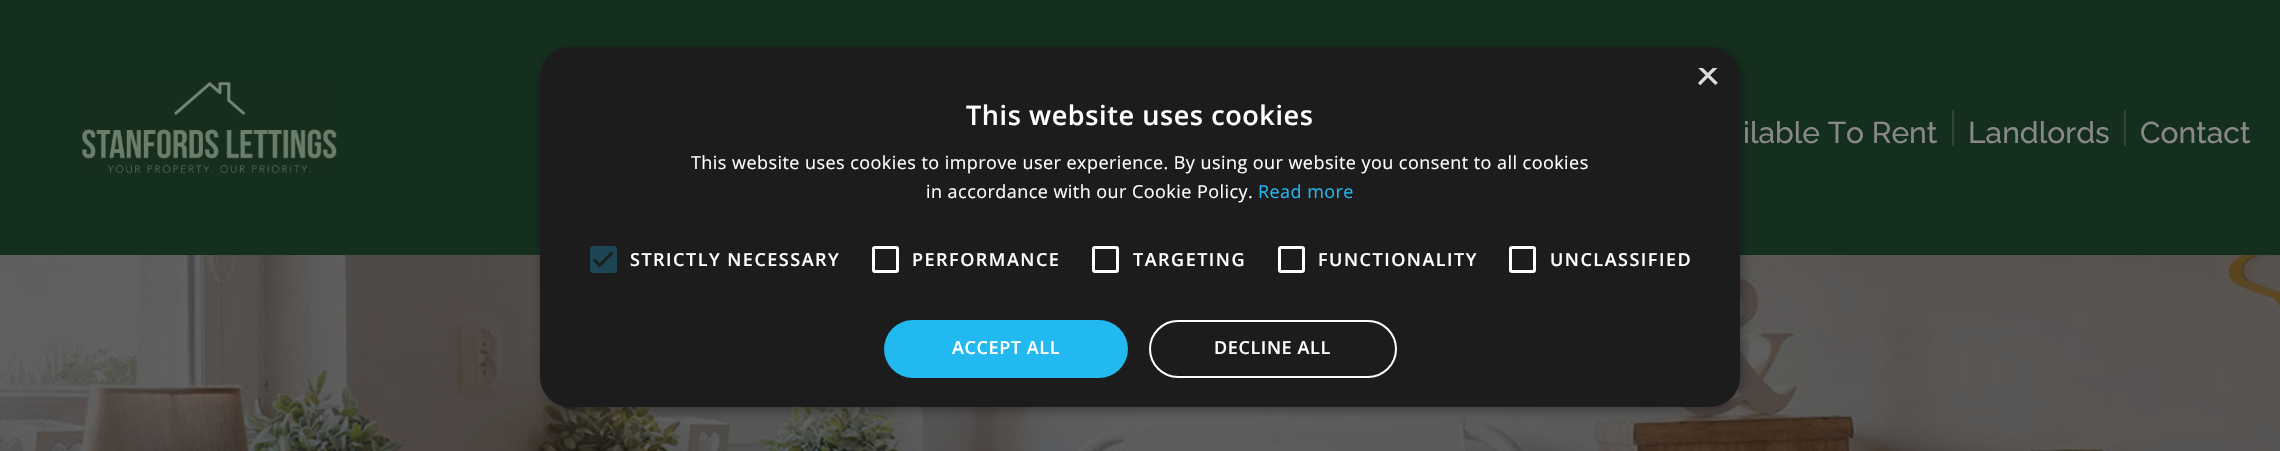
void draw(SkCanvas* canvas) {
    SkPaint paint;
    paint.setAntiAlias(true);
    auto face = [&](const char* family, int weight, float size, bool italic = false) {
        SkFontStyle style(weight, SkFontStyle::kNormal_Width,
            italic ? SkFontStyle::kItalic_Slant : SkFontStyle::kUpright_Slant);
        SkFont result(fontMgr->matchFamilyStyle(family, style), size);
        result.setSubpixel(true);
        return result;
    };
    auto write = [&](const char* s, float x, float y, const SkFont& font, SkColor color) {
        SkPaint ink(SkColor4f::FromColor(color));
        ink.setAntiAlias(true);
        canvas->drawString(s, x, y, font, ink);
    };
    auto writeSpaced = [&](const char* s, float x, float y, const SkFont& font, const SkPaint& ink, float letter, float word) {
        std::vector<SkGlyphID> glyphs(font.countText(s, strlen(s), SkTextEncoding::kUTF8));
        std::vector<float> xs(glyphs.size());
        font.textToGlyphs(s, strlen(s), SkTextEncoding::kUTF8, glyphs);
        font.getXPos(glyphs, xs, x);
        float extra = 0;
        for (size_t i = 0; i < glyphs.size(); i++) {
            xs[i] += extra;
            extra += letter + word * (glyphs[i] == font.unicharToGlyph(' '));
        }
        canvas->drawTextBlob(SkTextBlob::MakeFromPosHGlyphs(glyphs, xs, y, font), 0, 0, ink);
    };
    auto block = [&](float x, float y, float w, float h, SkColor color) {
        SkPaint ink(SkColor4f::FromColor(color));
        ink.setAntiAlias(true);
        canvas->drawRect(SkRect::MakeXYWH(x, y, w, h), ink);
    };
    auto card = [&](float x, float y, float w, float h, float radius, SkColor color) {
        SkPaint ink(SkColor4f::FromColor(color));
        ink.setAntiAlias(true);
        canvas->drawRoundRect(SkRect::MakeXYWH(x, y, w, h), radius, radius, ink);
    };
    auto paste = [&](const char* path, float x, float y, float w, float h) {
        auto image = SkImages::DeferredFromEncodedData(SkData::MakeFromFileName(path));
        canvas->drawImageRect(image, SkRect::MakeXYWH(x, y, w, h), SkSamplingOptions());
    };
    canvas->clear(SK_ColorWHITE);
    block(0, 0, 2280, 255, SkColorSetRGB(21, 47, 30));
    paste("pic2.png", 0, 255, 2280, 196);
    paint.setColor(SkColorSetARGB(89, 0, 0, 0));
    paint.setMaskFilter(SkMaskFilter::MakeBlur(kNormal_SkBlurStyle, 6));
    canvas->drawRoundRect(SkRect::MakeXYWH(542, 50, 1200, 360), 30, 30, paint);
    paint.setMaskFilter(nullptr);
    card(540, 47, 1200, 360, 30, SkColorSetRGB(28, 28, 28));
    canvas->save();
    canvas->clipRect(SkRect::MakeXYWH(1695, 68, 23, 22));
    auto kFont1 = face("Liberation Sans", 400, 44);
    write("×", 1695, 90, kFont1, SkColorSetRGB(221, 221, 221));
    canvas->restore();
    auto kFont2 = face("Open Sans", 600, 27);
    paint.setColor(SK_ColorWHITE);
    writeSpaced("This website uses cookies", 966, 125, kFont2, paint, 0.6f, 0);
    auto kFont3 = face("Open Sans", 400, 18);
    writeSpaced("This website uses cookies to improve user experience. By using our website you consent to all cookies", 691, 169, kFont3, paint, 0.45f, 0);
    writeSpaced("in accordance with our Cookie Policy.", 926, 198, kFont3, paint, 0.45f, 0);
    paint.setColor(SkColorSetRGB(34, 184, 240));
    writeSpaced("Read more", 1258, 198, kFont3, paint, 0.45f, 0);
    card(590, 246, 27, 27, 3, SkColorSetRGB(30, 69, 83));
    paint.setStyle(SkPaint::kStroke_Style);
    paint.setStrokeWidth(2.7f);
    paint.setColor(SkColorSetRGB(28, 28, 28));
    canvas->drawPath(SkPathBuilder().moveTo(594, 259.5f).lineTo(599.5f, 265.5f).lineTo(612.5f, 252.5f).detach(), paint);
    auto kFont4 = face("Open Sans", 600, 18);
    paint.setStyle(SkPaint::kFill_Style);
    paint.setColor(SK_ColorWHITE);
    writeSpaced("STRICTLY NECESSARY", 630, 266, kFont4, paint, 1.5f, 0);
    paint.setStyle(SkPaint::kStroke_Style);
    paint.setStrokeWidth(3);
    canvas->drawRoundRect(SkRect::MakeXYWH(873.5f, 247.5f, 24, 24), 1.5f, 1.5f, paint);
    paint.setStyle(SkPaint::kFill_Style);
    writeSpaced("PERFORMANCE", 912, 266, kFont4, paint, 1.5f, 0);
    paint.setStyle(SkPaint::kStroke_Style);
    canvas->drawRoundRect(SkRect::MakeXYWH(1093.5f, 247.5f, 24, 24), 1.5f, 1.5f, paint);
    paint.setStyle(SkPaint::kFill_Style);
    writeSpaced("TARGETING", 1133, 266, kFont4, paint, 1.5f, 0);
    paint.setStyle(SkPaint::kStroke_Style);
    canvas->drawRoundRect(SkRect::MakeXYWH(1279.5f, 247.5f, 24, 24), 1.5f, 1.5f, paint);
    paint.setStyle(SkPaint::kFill_Style);
    writeSpaced("FUNCTIONALITY", 1318, 266, kFont4, paint, 1.5f, 0);
    paint.setStyle(SkPaint::kStroke_Style);
    canvas->drawRoundRect(SkRect::MakeXYWH(1510.5f, 247.5f, 24, 24), 1.5f, 1.5f, paint);
    paint.setStyle(SkPaint::kFill_Style);
    writeSpaced("UNCLASSIFIED", 1550, 266, kFont4, paint, 1.5f, 0);
    card(884, 320, 244, 58, 29, SkColorSetRGB(34, 184, 240));
    writeSpaced("ACCEPT ALL", 952, 354, kFont4, paint, 0.6f, 0);
    paint.setStyle(SkPaint::kStroke_Style);
    paint.setStrokeWidth(2);
    canvas->drawRoundRect(SkRect::MakeXYWH(1150, 321, 246, 56), 28, 28, paint);
    paint.setStyle(SkPaint::kFill_Style);
    writeSpaced("DECLINE ALL", 1214, 354, kFont4, paint, 0.6f, 0);
    paste("pic1.png", 82, 81, 255, 93);
    auto kFont5 = face("Raleway", 500, 30);
    write("ilable To Rent", 1743, 143, kFont5, SkColorSetRGB(136, 136, 136));
    block(1952, 110, 2, 36, SkColorSetRGB(50, 69, 57));
    write("Landlords", 1968, 143, kFont5, SkColorSetRGB(136, 136, 136));
    block(2124, 110, 2, 36, SkColorSetRGB(50, 69, 57));
    write("Contact", 2140, 143, kFont5, SkColorSetRGB(136, 136, 136));
}
